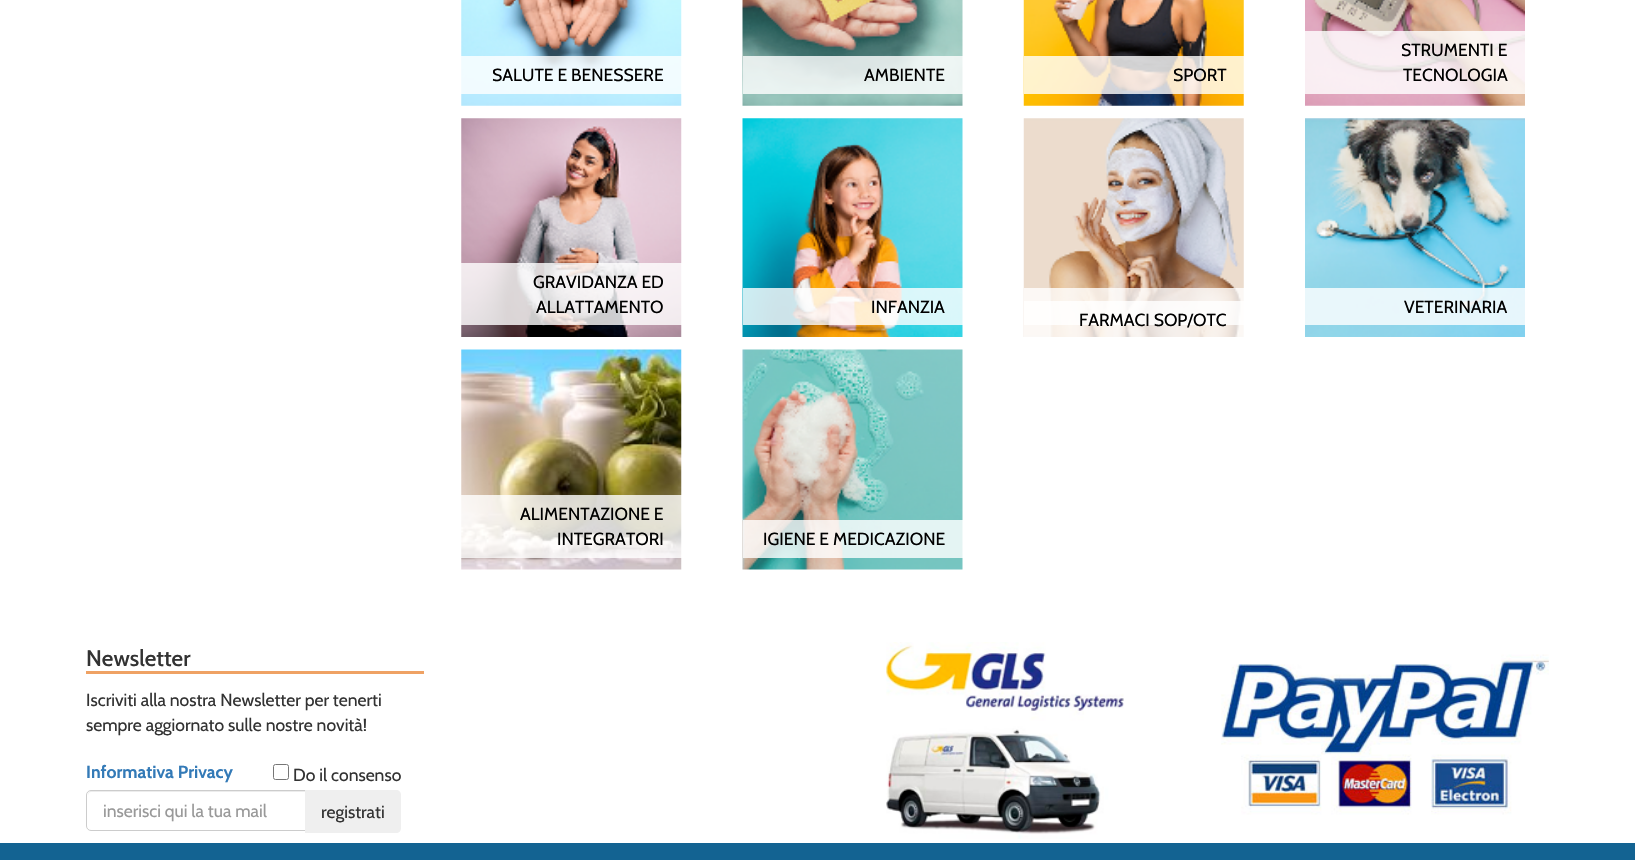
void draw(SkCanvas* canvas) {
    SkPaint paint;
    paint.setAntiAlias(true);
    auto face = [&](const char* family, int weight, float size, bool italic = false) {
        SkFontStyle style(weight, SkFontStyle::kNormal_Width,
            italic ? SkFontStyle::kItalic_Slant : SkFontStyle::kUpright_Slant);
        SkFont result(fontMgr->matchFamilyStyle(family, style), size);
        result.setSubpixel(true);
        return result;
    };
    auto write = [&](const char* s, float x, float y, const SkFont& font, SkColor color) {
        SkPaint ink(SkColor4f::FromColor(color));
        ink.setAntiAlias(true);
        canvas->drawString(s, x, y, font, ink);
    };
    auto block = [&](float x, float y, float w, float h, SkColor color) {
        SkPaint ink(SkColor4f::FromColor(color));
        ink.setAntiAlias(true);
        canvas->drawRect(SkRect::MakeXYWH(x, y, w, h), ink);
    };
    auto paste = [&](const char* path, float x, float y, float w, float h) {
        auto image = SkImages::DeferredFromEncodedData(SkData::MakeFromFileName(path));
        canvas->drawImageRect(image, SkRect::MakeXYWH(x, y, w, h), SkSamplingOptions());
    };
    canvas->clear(SK_ColorWHITE);
    paste("pic1.png", 461, 0, 221, 106);
    block(461, 56, 221, 38, SkColorSetARGB(204, 255, 255, 255));
    auto kFont1 = face("Cabin", 400, 17.5f);
    write("SALUTE E BENESSERE", 492, 81, kFont1, SK_ColorBLACK);
    paste("pic2.png", 742, 0, 221, 106);
    block(743, 56, 220, 38, SkColorSetARGB(204, 255, 255, 255));
    write("AMBIENTE", 864, 81, kFont1, SK_ColorBLACK);
    paste("pic3.png", 1023, 0, 221, 106);
    block(1024, 56, 220, 38, SkColorSetARGB(204, 255, 255, 255));
    write("SPORT", 1173, 81, kFont1, SK_ColorBLACK);
    paste("pic4.png", 1305, 0, 220, 106);
    block(1305, 31, 220, 63, SkColorSetARGB(204, 255, 255, 255));
    write("STRUMENTI E", 1401, 56, kFont1, SK_ColorBLACK);
    write("TECNOLOGIA", 1403, 81, kFont1, SK_ColorBLACK);
    paste("pic5.png", 461, 118, 221, 219);
    block(461, 263, 221, 62, SkColorSetARGB(204, 255, 255, 255));
    write("GRAVIDANZA ED", 533, 288, kFont1, SK_ColorBLACK);
    write("ALLATTAMENTO", 536, 313, kFont1, SK_ColorBLACK);
    paste("pic6.png", 742, 118, 221, 219);
    block(743, 288, 220, 37, SkColorSetARGB(204, 255, 255, 255));
    write("INFANZIA", 871, 313, kFont1, SK_ColorBLACK);
    paste("pic7.png", 1023, 118, 221, 219);
    block(1024, 288, 220, 37, SkColorSetARGB(204, 255, 255, 255));
    paste("pic8.png", 1305, 118, 220, 219);
    block(1305, 288, 220, 37, SkColorSetARGB(204, 255, 255, 255));
    write("VETERINARIA", 1404, 313, kFont1, SK_ColorBLACK);
    block(1024, 301, 220, 36, SkColorSetARGB(204, 255, 255, 255));
    write("FARMACI SOP/OTC", 1079, 326, kFont1, SK_ColorBLACK);
    paste("pic9.png", 461, 349, 221, 221);
    block(461, 495, 221, 63, SkColorSetARGB(204, 255, 255, 255));
    write("ALIMENTAZIONE E", 520, 520, kFont1, SK_ColorBLACK);
    write("INTEGRATORI", 557, 545, kFont1, SK_ColorBLACK);
    paste("pic10.png", 742, 349, 221, 221);
    block(743, 520, 220, 38, SkColorSetARGB(204, 255, 255, 255));
    write("IGIENE E MEDICAZIONE", 763, 545, kFont1, SK_ColorBLACK);
    block(86, 671, 338, 3, SkColorSetRGB(239, 162, 100));
    auto kFont2 = face("Cabin", 500, 22.5f);
    write("Newsletter", 86, 666, kFont2, SkColorSetRGB(51, 51, 51));
    write("Iscriviti alla nostra Newsletter per tenerti", 86, 706, kFont1, SkColorSetRGB(51, 51, 51));
    write("sempre aggiornato sulle nostre novità!", 86, 731, kFont1, SkColorSetRGB(51, 51, 51));
    auto kFont3 = face("Cabin", 700, 17.5f);
    write("Informativa Privacy", 86, 778, kFont3, SkColorSetRGB(51, 122, 183));
    paint.setStyle(SkPaint::kStroke_Style);
    paint.setStrokeWidth(1);
    paint.setColor(SkColorSetRGB(118, 118, 118));
    canvas->drawRoundRect(SkRect::MakeXYWH(273.5f, 764.5f, 15, 15), 2, 2, paint);
    write("Do il consenso", 293, 781, kFont1, SkColorSetRGB(51, 51, 51));
    paint.setStyle(SkPaint::kFill_Style);
    paint.setColor(SkColorSetRGB(236, 236, 236));
    canvas->drawPath(SkPathBuilder().moveTo(91, 792).lineTo(305, 792).lineTo(305, 791).lineTo(90, 791).cubicTo(88, 792, 88, 794, 88, 796).cubicTo(88, 794, 89, 792, 91, 792).close().detach(), paint);
    paint.setStyle(SkPaint::kStroke_Style);
    paint.setColor(SkColorSetRGB(204, 204, 204));
    canvas->drawPath(SkPathBuilder().moveTo(91, 790.5f).lineTo(305.5f, 790.5f).lineTo(305.5f, 830.5f).lineTo(91, 830.5f).cubicTo(88.5f, 830.5f, 86.5f, 828.5f, 86.5f, 826).lineTo(86.5f, 795).cubicTo(86.5f, 792.5f, 88.5f, 790.5f, 91, 790.5f).close().detach(), paint);
    write("inserisci qui la tua mail", 103, 817, kFont1, SkColorSetRGB(153, 153, 153));
    paint.setStyle(SkPaint::kFill_Style);
    paint.setColor(SkColorSetRGB(239, 239, 239));
    canvas->drawPath(SkPathBuilder().moveTo(305, 790).lineTo(396, 790).cubicTo(399, 790, 401, 792, 401, 795).lineTo(401, 828).cubicTo(401, 831, 399, 833, 396, 833).lineTo(305, 833).close().detach(), paint);
    write("registrati", 321, 818, kFont1, SkColorSetRGB(51, 51, 51));
    paste("pic11.png", 886, 642, 238, 197);
    paste("pic12.png", 1221, 654, 328, 161);
    block(0, 843, 1635, 17, SkColorSetRGB(19, 99, 146));
}
